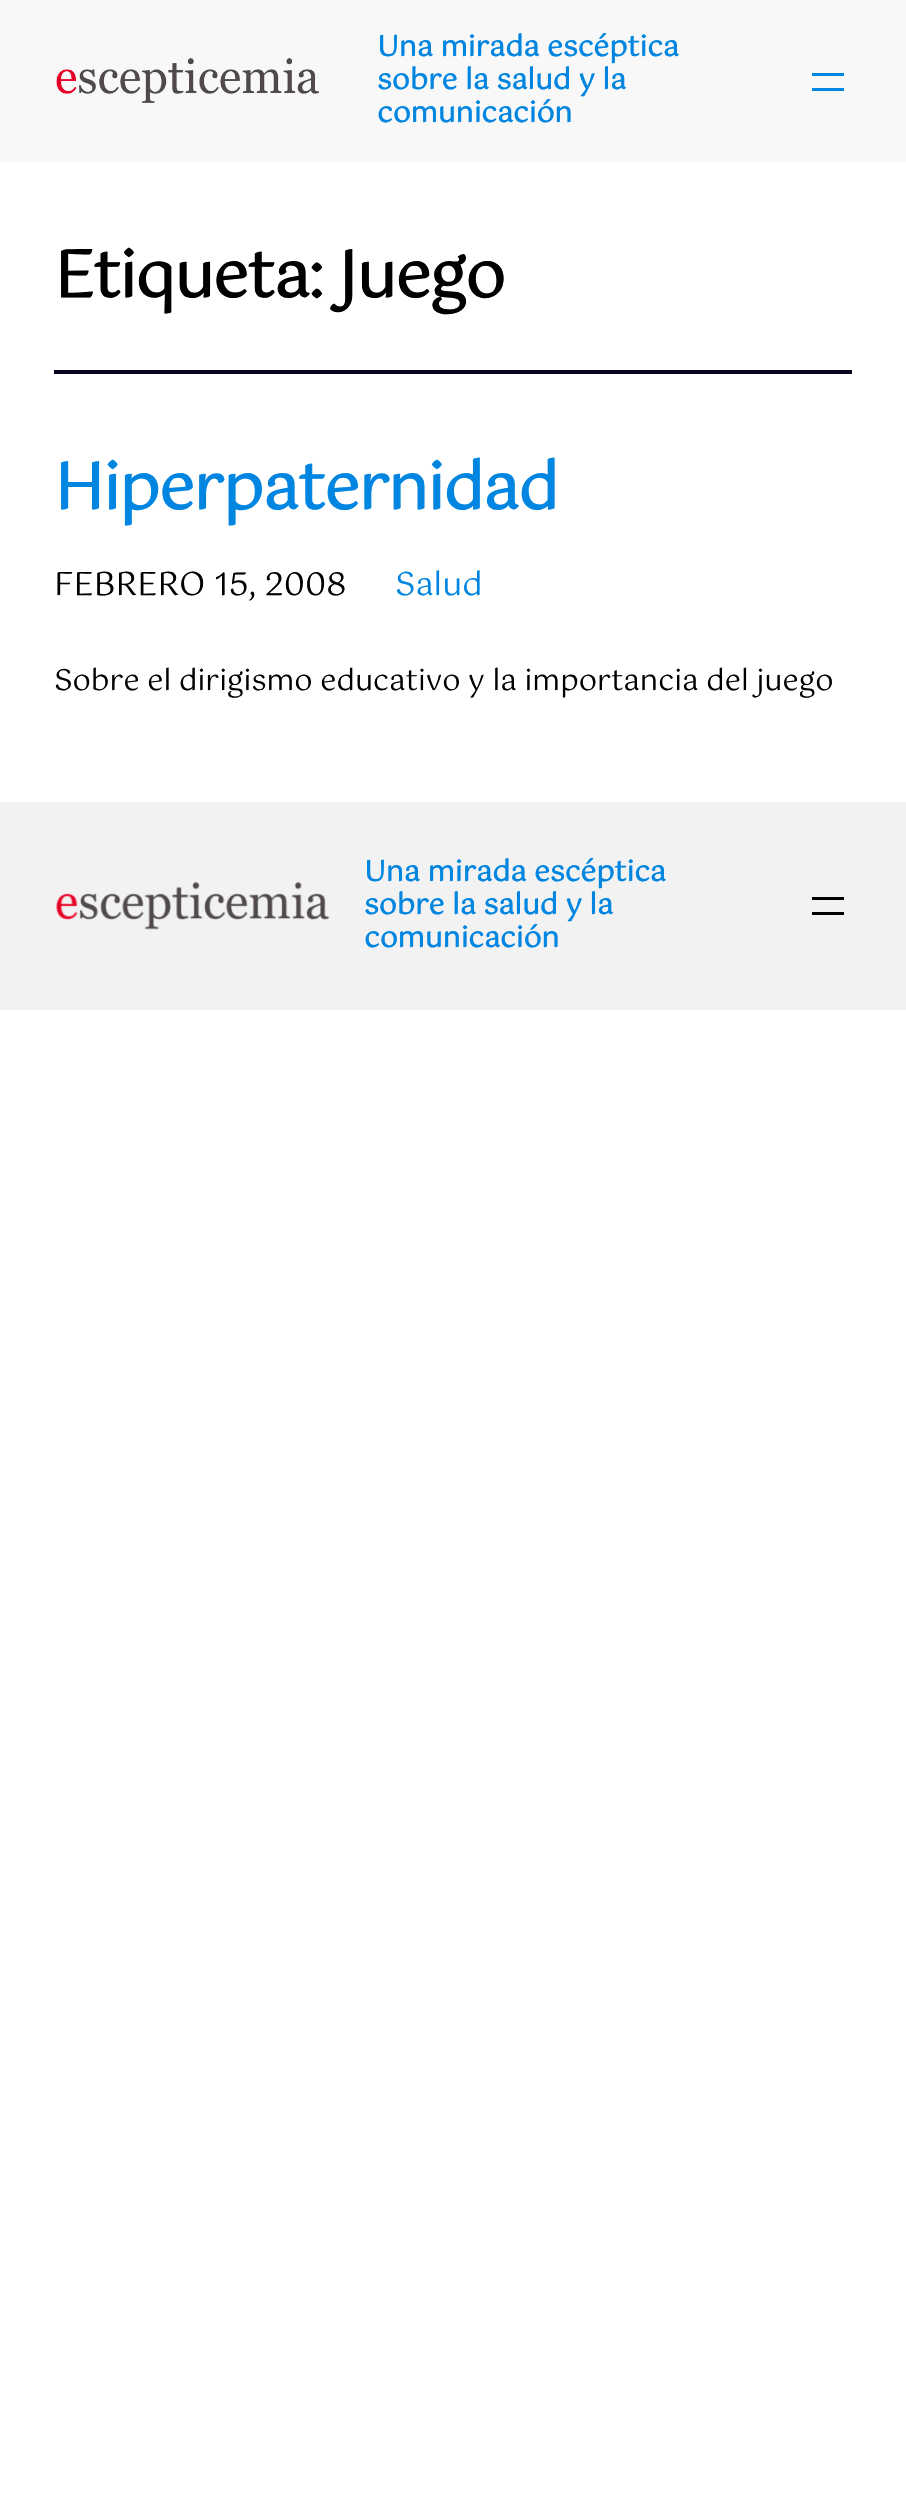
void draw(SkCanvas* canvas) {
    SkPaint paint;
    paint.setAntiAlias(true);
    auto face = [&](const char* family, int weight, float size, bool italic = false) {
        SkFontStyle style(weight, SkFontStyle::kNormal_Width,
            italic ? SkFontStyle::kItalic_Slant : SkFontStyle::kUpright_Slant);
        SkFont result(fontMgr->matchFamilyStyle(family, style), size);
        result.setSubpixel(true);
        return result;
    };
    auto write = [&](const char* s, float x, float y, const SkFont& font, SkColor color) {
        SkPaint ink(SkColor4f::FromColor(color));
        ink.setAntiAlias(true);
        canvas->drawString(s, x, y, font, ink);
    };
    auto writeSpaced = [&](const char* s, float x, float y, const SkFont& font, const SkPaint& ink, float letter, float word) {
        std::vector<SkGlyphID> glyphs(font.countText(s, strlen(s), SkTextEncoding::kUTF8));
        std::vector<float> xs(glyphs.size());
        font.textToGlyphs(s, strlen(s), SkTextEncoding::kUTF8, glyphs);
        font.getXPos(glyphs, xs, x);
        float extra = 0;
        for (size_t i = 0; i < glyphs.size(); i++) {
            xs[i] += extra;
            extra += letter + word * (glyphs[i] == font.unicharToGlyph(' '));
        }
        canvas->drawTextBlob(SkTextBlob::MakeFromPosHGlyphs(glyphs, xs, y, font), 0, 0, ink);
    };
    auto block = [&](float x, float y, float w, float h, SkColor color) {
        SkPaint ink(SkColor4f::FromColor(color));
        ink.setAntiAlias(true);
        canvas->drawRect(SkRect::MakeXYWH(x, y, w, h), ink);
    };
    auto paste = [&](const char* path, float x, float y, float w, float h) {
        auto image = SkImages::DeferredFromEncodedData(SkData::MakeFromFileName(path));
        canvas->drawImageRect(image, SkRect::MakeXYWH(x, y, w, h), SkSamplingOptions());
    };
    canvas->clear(SK_ColorWHITE);
    block(0, 0, 906, 162, SkColorSetRGB(248, 248, 248));
    paste("pic1.png", 56, 58, 263, 45);
    auto kFont1 = face("Gotu", 700, 28.5f);
    write("Una mirada escéptica", 377, 56, kFont1, SkColorSetRGB(0, 133, 224));
    write("sobre la salud y la", 377, 89, kFont1, SkColorSetRGB(0, 133, 224));
    write("comunicación", 377, 122, kFont1, SkColorSetRGB(0, 133, 224));
    block(812, 73, 32, 3, SkColorSetRGB(0, 133, 224));
    block(812, 88, 32, 3, SkColorSetRGB(0, 133, 224));
    auto kFont2 = face("Gotu", 700, 64.25f);
    paint.setColor(SK_ColorBLACK);
    writeSpaced("Etiqueta: Juego", 54, 297, kFont2, paint, -1.25f, 0);
    block(54, 370, 798, 4, SkColorSetRGB(11, 6, 32));
    paint.setColor(SkColorSetRGB(0, 133, 224));
    writeSpaced("Hiperpaternidad", 54, 509, kFont2, paint, -1.25f, 0);
    auto kFont3 = face("Gotu", 400, 32);
    write("FEBRERO 15, 2008", 54, 595, kFont3, SK_ColorBLACK);
    write("Salud", 395, 595, kFont3, SkColorSetRGB(0, 133, 224));
    auto kFont4 = face("Gotu", 400, 29.1f);
    write("Sobre el dirigismo educativo y la importancia del juego", 54, 690, kFont4, SK_ColorBLACK);
    block(0, 802, 906, 208, SkColorSetRGB(242, 242, 242));
    paste("pic2.png", 55, 881, 275, 49);
    write("Una mirada escéptica", 364, 881, kFont1, SkColorSetRGB(0, 133, 224));
    write("sobre la salud y la", 364, 914, kFont1, SkColorSetRGB(0, 133, 224));
    write("comunicación", 364, 947, kFont1, SkColorSetRGB(0, 133, 224));
    block(812, 897, 32, 3, SK_ColorBLACK);
    block(812, 912, 32, 3, SK_ColorBLACK);
}
